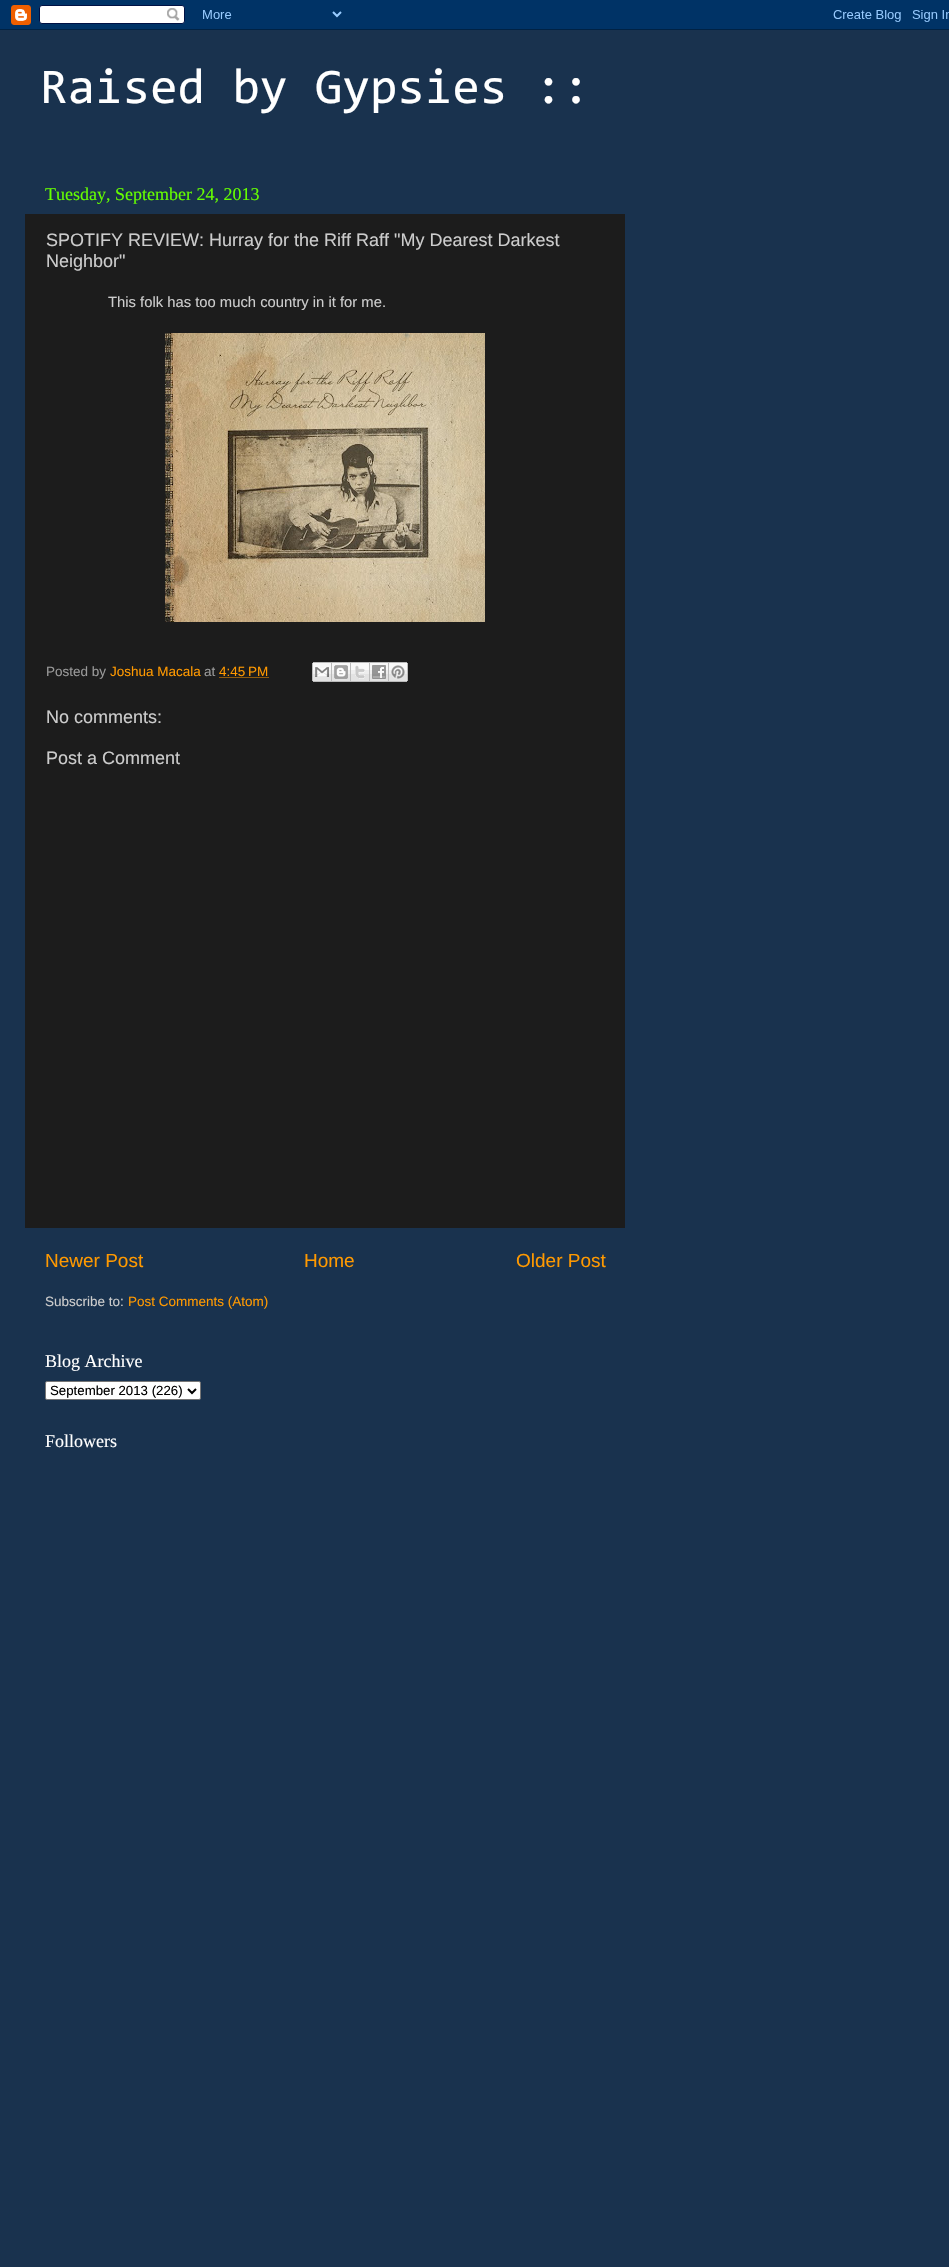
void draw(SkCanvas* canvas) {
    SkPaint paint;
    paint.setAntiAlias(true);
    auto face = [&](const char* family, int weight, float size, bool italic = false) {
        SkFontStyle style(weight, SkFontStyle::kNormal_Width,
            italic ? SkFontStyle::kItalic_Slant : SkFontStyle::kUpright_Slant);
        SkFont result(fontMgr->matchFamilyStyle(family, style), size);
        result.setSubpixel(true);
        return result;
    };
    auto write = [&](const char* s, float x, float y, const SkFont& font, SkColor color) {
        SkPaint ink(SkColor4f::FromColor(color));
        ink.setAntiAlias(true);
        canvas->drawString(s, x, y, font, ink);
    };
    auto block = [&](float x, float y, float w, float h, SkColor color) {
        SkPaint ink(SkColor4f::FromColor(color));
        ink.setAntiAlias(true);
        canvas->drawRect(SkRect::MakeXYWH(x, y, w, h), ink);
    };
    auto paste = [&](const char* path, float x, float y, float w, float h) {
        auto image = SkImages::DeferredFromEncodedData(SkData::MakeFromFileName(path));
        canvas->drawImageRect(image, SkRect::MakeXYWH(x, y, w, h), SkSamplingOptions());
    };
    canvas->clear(SkColorSetRGB(25, 50, 78));
    paste("pic1.png", 0, 0, 949, 30);
    auto kFont1 = face("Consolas", 400, 50);
    write("Raised by Gypsies ::", 40, 103, kFont1, SK_ColorWHITE);
    auto kFont2 = face("Liberation Serif", 400, 18);
    write("Tuesday, September 24, 2013", 45, 200, kFont2, SkColorSetRGB(101, 255, 0));
    block(25, 214, 600, 1014, SkColorSetRGB(28, 28, 28));
    auto kFont3 = face("Liberation Sans", 400, 18);
    write("SPOTIFY REVIEW: Hurray for the Riff Raff \"My Dearest Darkest", 46, 246, kFont3, SkColorSetRGB(204, 204, 204));
    write("Neighbor\"", 46, 267, kFont3, SkColorSetRGB(204, 204, 204));
    auto kFont4 = face("Liberation Sans", 400, 14.8f);
    write("This folk has too much country in it for me.", 108, 307, kFont4, SkColorSetRGB(204, 204, 204));
    paste("pic2.png", 165, 333, 320, 289);
    auto kFont5 = face("Liberation Sans", 400, 13.5f);
    write("Posted by", 46, 676, kFont5, SkColorSetRGB(153, 153, 153));
    write("Joshua Macala", 110, 676, kFont5, SkColorSetRGB(255, 153, 0));
    write("at", 204, 676, kFont5, SkColorSetRGB(153, 153, 153));
    write("4:45 PM", 219, 676, kFont5, SkColorSetRGB(255, 153, 0));
    paint.setStyle(SkPaint::kStroke_Style);
    paint.setStrokeWidth(1);
    paint.setColor(SkColorSetRGB(255, 153, 0));
    paint.setPathEffect(SkDashPathEffect::Make({{1, 1}}, 0));
    canvas->drawPath(SkPathBuilder().moveTo(219.5f, 677.5f).lineTo(268.5f, 677.5f).detach(), paint);
    paint.setPathEffect(nullptr);
    paste("pic3.png", 312, 662, 20, 20);
    paste("pic4.png", 332, 662, 19, 20);
    paste("pic5.png", 351, 662, 19, 20);
    paste("pic6.png", 370, 662, 19, 20);
    paste("pic7.png", 389, 662, 19, 20);
    write("No comments:", 46, 723, kFont3, SkColorSetRGB(204, 204, 204));
    write("Post a Comment", 46, 764, kFont3, SkColorSetRGB(204, 204, 204));
    auto kFont6 = face("Liberation Sans", 400, 19);
    write("Newer Post", 45, 1267, kFont6, SkColorSetRGB(255, 153, 0));
    write("Home", 304, 1267, kFont6, SkColorSetRGB(255, 153, 0));
    write("Older Post", 516, 1267, kFont6, SkColorSetRGB(255, 153, 0));
    write("Subscribe to:", 45, 1306, kFont5, SkColorSetRGB(204, 204, 204));
    write("Post Comments (Atom)", 128, 1306, kFont5, SkColorSetRGB(255, 153, 0));
    write("Blog Archive", 45, 1367, kFont2, SK_ColorWHITE);
    paint.setStyle(SkPaint::kFill_Style);
    paint.setColor(SK_ColorWHITE);
    canvas->drawRoundRect(SkRect::MakeXYWH(45.5f, 1381.5f, 155, 18), 1.5f, 1.5f, paint);
    paint.setStyle(SkPaint::kStroke_Style);
    paint.setColor(SkColorSetRGB(118, 118, 118));
    canvas->drawRoundRect(SkRect::MakeXYWH(45.5f, 1381.5f, 155, 18), 1.5f, 1.5f, paint);
    paint.setStrokeWidth(2);
    paint.setColor(SK_ColorBLACK);
    canvas->drawPath(SkPathBuilder().moveTo(188, 1389).lineTo(192, 1393).lineTo(196, 1389).detach(), paint);
    auto kFont7 = face("Liberation Sans", 400, 13.25f);
    write("September 2013 (226)", 50, 1395, kFont7, SK_ColorBLACK);
    write("Followers", 45, 1447, kFont2, SK_ColorWHITE);
}
